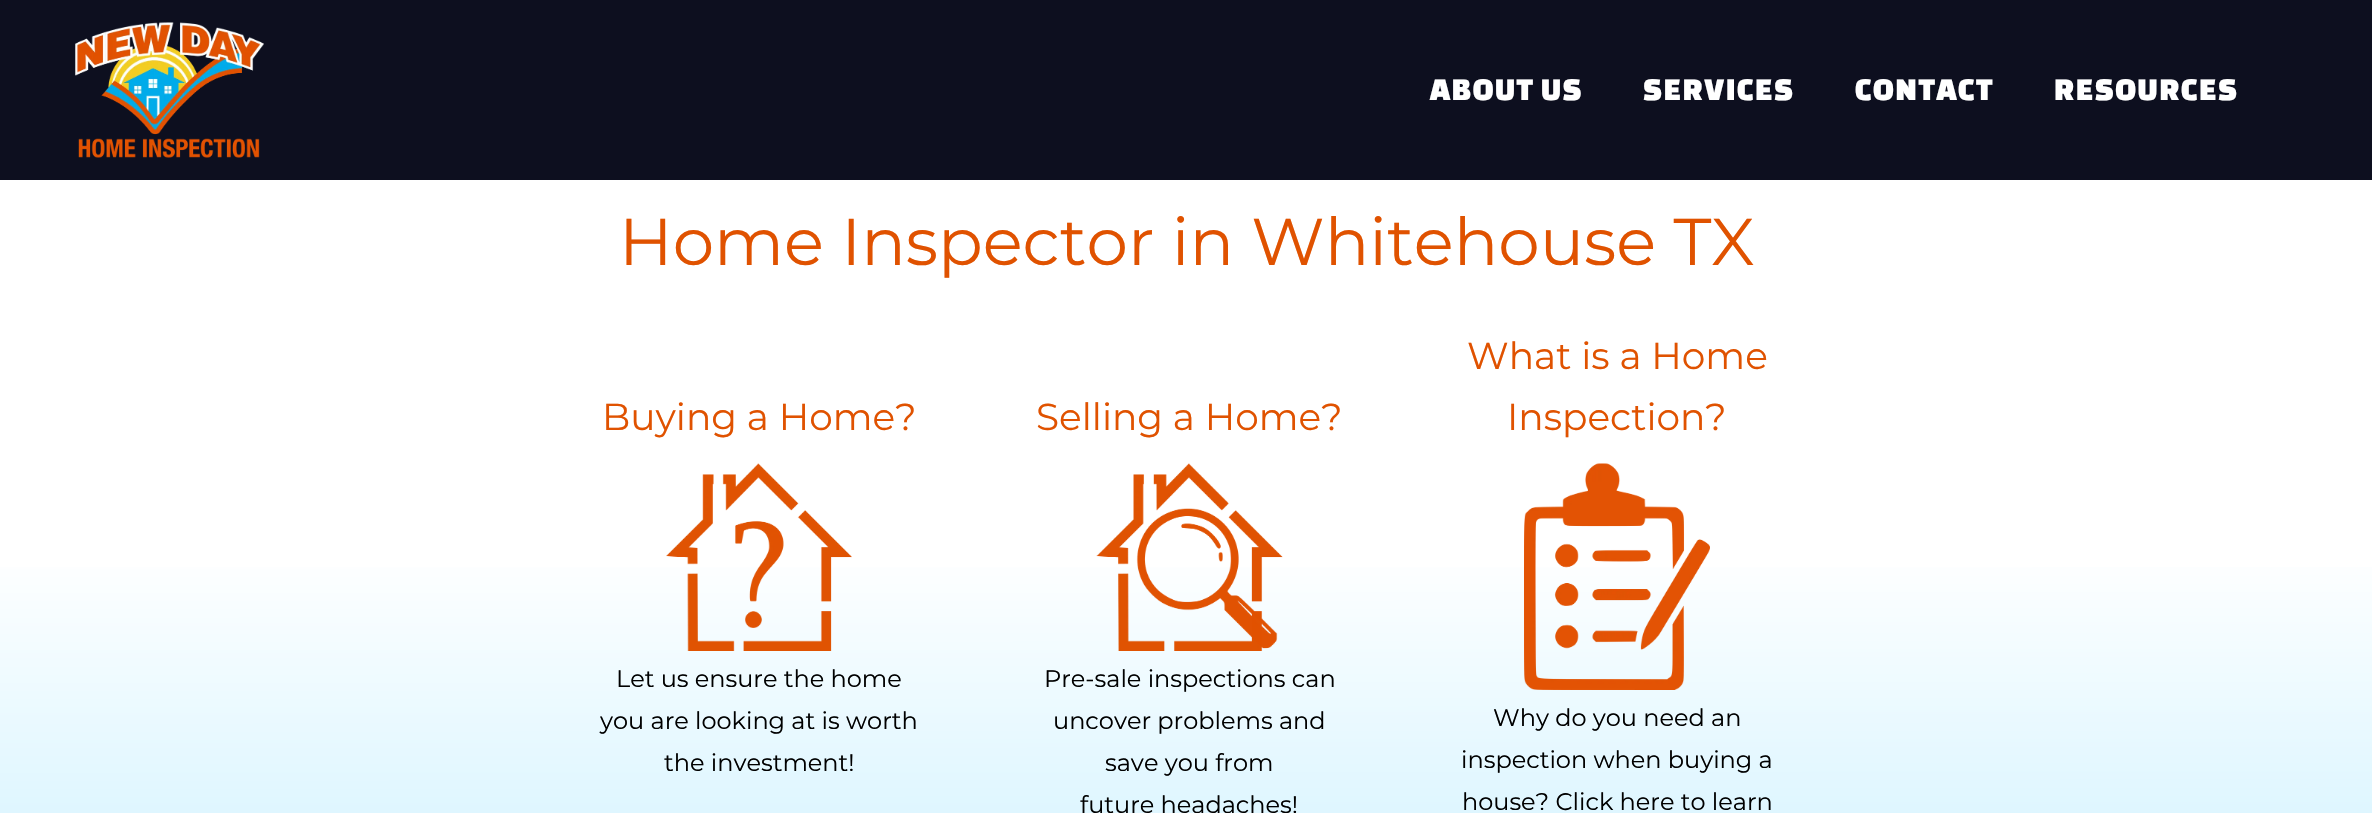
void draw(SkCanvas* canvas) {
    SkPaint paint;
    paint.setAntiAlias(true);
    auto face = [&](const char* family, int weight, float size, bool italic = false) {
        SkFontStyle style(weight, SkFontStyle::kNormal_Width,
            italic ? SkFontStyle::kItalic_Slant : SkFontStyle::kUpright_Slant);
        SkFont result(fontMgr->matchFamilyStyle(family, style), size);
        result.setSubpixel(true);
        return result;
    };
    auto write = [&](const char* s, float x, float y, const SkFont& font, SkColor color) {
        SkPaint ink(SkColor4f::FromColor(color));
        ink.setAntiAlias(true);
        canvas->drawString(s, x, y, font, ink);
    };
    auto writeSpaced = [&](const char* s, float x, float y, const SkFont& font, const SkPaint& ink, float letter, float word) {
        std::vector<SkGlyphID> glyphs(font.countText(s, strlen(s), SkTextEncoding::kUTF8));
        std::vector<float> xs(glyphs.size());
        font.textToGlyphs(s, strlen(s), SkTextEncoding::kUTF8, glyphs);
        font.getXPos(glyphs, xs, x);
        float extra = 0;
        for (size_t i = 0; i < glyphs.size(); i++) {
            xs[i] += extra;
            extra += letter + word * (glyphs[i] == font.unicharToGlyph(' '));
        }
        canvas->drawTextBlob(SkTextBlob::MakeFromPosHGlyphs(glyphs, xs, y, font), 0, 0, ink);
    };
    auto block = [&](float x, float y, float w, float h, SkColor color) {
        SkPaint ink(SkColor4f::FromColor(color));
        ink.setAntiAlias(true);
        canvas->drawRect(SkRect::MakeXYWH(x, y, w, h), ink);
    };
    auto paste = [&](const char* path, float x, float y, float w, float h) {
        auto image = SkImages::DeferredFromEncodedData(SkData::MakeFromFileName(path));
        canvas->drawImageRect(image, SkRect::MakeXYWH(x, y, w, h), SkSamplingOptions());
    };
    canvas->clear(SK_ColorWHITE);
    block(0, 0, 2372, 180, SkColorSetRGB(13, 15, 31));
    paste("pic1.png", 75, 22, 189, 136);
    auto kFont1 = face("Changa One", 400, 33);
    paint.setColor(SK_ColorWHITE);
    writeSpaced("ABOUT US", 1430, 100, kFont1, paint, 1.5f, 0);
    writeSpaced("SERVICES", 1643, 100, kFont1, paint, 1.5f, 0);
    writeSpaced("CONTACT", 1855, 100, kFont1, paint, 1.5f, 0);
    writeSpaced("RESOURCES", 2054, 100, kFont1, paint, 1.5f, 0);
    {
        const SkColor colors[] = {SK_ColorWHITE, SkColorSetRGB(130, 221, 255), SkColorSetRGB(0, 3, 26)};
        const float stops[] = {0.22f, 0.83f, 1};
        const SkPoint ends[] = {{1186, 180}, {1187, 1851}};
        paint.setShader(SkGradientShader::MakeLinear(ends, colors, stops, 3, SkTileMode::kClamp));
        paint.setAlpha(255);
    }
    canvas->drawRect(SkRect::MakeXYWH(0, 567, 2372, 246), paint);
    auto kFont2 = face("Montserrat", 400, 66);
    write("Home Inspector in Whitehouse TX", 619, 265, kFont2, SkColorSetRGB(224, 82, 0));
    auto kFont3 = face("Montserrat", 400, 37.5f);
    write("Buying a Home?", 602, 430, kFont3, SkColorSetRGB(224, 82, 0));
    paste("pic2.png", 666, 463, 186, 188);
    auto kFont4 = face("Montserrat", 400, 24);
    write("Let us ensure the home", 616, 687, kFont4, SK_ColorBLACK);
    write("you are looking at is worth", 600, 729, kFont4, SK_ColorBLACK);
    write("the investment!", 664, 771, kFont4, SK_ColorBLACK);
    write("Selling a Home?", 1036, 430, kFont3, SkColorSetRGB(224, 82, 0));
    paste("pic3.png", 1096, 463, 187, 188);
    write("Pre-sale inspections can", 1044, 687, kFont4, SK_ColorBLACK);
    write("uncover problems and", 1053, 729, kFont4, SK_ColorBLACK);
    write("save you from", 1105, 771, kFont4, SK_ColorBLACK);
    write("future headaches!", 1080, 813, kFont4, SK_ColorBLACK);
    write("What is a Home", 1467, 369, kFont3, SkColorSetRGB(224, 82, 0));
    write("Inspection?", 1507, 430, kFont3, SkColorSetRGB(224, 82, 0));
    paste("pic4.png", 1524, 463, 186, 227);
    write("Why do you need an", 1493, 726, kFont4, SK_ColorBLACK);
    write("inspection when buying a", 1461, 768, kFont4, SK_ColorBLACK);
    write("house? Click here to learn", 1462, 810, kFont4, SK_ColorBLACK);
}
